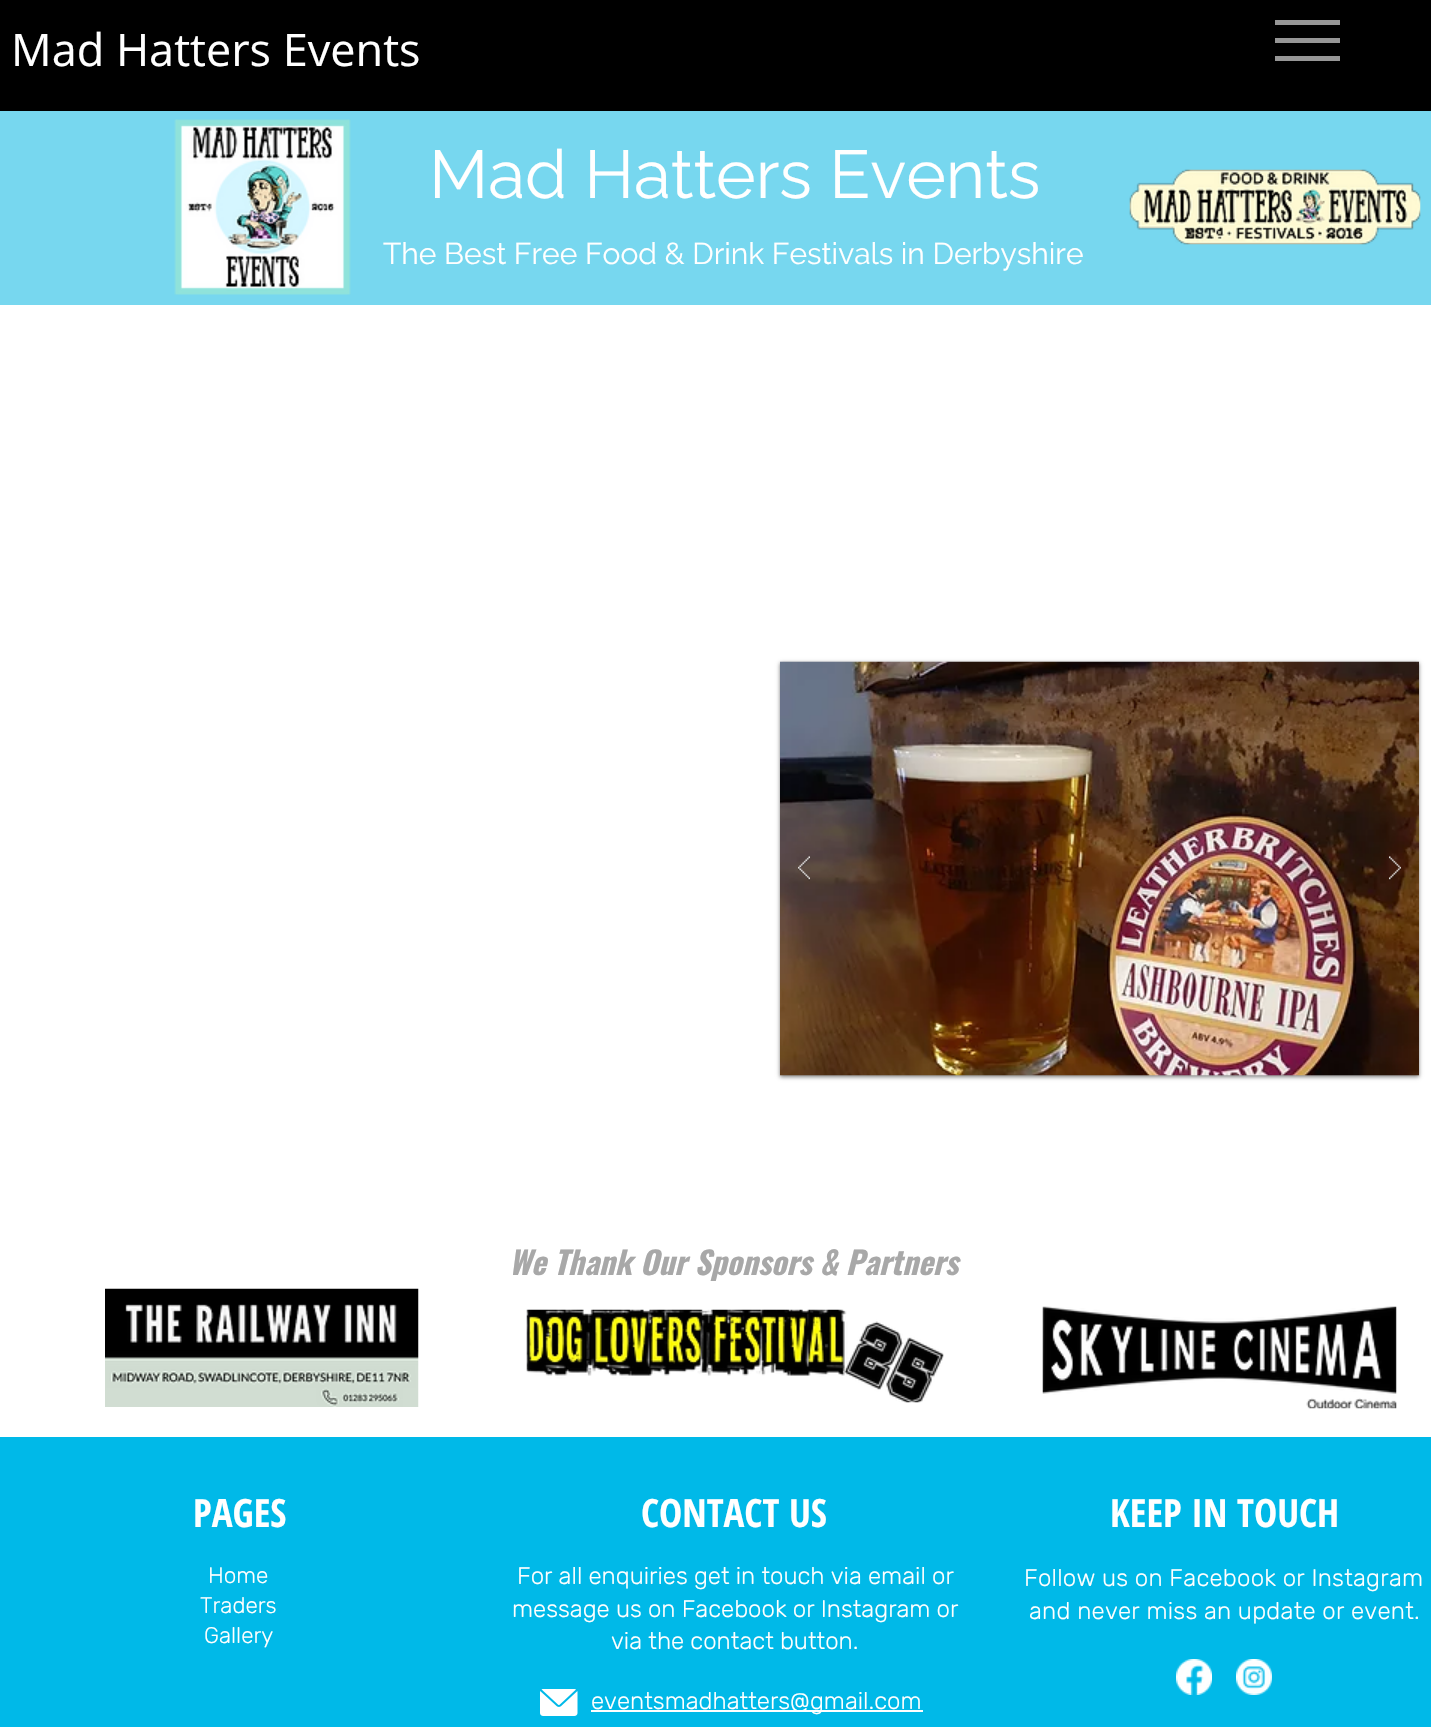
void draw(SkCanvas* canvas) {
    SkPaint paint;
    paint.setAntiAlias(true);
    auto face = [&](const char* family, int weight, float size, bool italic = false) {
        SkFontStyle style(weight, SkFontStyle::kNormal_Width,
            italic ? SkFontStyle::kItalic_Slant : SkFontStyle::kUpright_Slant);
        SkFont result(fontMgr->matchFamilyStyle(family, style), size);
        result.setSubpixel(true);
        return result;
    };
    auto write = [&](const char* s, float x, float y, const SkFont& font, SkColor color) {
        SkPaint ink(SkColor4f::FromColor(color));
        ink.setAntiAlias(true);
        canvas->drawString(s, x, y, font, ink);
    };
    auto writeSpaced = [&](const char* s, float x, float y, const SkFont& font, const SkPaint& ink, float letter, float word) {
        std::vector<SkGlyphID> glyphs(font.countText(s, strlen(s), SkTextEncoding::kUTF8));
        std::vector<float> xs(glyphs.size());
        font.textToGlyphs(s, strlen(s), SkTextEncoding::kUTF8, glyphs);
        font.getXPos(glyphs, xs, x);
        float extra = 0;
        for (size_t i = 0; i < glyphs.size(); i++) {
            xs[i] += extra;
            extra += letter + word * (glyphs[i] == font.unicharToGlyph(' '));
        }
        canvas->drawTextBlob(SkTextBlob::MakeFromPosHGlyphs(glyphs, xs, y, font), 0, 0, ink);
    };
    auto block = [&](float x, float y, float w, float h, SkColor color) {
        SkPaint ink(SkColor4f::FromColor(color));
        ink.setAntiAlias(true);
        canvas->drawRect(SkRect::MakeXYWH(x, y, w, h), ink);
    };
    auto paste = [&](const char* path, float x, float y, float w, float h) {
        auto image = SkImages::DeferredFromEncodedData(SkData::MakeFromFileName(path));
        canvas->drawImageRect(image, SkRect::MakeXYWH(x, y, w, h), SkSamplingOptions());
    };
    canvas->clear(SK_ColorWHITE);
    block(0, 0, 1431, 111, SK_ColorBLACK);
    auto kFont1 = face("Open Sans", 400, 45);
    write("Mad Hatters Events", 11, 66, kFont1, SK_ColorWHITE);
    block(1275, 56, 65, 5, SkColorSetRGB(150, 150, 150));
    block(1275, 20, 65, 5, SkColorSetRGB(150, 150, 150));
    block(1275, 38, 65, 5, SkColorSetRGB(150, 150, 150));
    block(0, 111, 1431, 194, SkColorSetRGB(119, 215, 239));
    paste("pic1.png", 174, 119, 177, 176);
    auto kFont2 = face("Raleway", 400, 67.5f);
    write("Mad Hatters Events", 429, 198, kFont2, SK_ColorWHITE);
    paste("pic2.png", 1129, 169, 292, 76);
    auto kFont3 = face("Raleway", 400, 30);
    write("The Best Free Food & Drink Festivals in Derbyshire", 383, 264, kFont3, SK_ColorWHITE);
    paint.setColor(SkColorSetARGB(128, 0, 0, 0));
    paint.setMaskFilter(SkMaskFilter::MakeBlur(kNormal_SkBlurStyle, 2));
    canvas->drawRect(SkRect::MakeXYWH(780, 663, 639, 414), paint);
    paint.setMaskFilter(nullptr);
    paste("pic3.png", 780, 661, 639, 415);
    paste("pic4.png", 798, 856, 12, 25);
    paste("pic5.png", 1389, 856, 12, 25);
    auto kFont4 = face("Oswald", 700, 31.5f, true);
    write("We Thank Our Sponsors & Partners", 509, 1275, kFont4, SkColorSetRGB(168, 168, 168));
    paste("pic6.png", 105, 1288, 314, 119);
    paste("pic7.png", 526, 1309, 418, 94);
    paste("pic8.png", 1042, 1306, 355, 103);
    block(0, 1437, 1431, 290, SkColorSetRGB(0, 185, 232));
    auto kFont5 = face("Open Sans Condensed", 700, 39);
    write("PAGES", 193, 1527, kFont5, SK_ColorWHITE);
    write("CONTACT US", 641, 1527, kFont5, SK_ColorWHITE);
    write("KEEP IN TOUCH", 1110, 1527, kFont5, SK_ColorWHITE);
    auto kFont6 = face("Rubik", 300, 22.5f);
    write("Home", 208, 1583, kFont6, SK_ColorWHITE);
    write("Traders", 200, 1613, kFont6, SK_ColorWHITE);
    write("Gallery", 204, 1643, kFont6, SK_ColorWHITE);
    auto kFont7 = face("Rubik", 300, 24);
    write("For all enquiries get in touch via email or", 517, 1584, kFont7, SK_ColorWHITE);
    write("message us on Facebook or Instagram or", 512, 1617, kFont7, SK_ColorWHITE);
    write("via the contact button.", 611, 1649, kFont7, SK_ColorWHITE);
    paint.setColor(SK_ColorWHITE);
    writeSpaced("Follow us on Facebook or Instagram", 1024, 1586, kFont7, paint, 0.25f, 0);
    writeSpaced("and never miss an update or event.", 1029, 1619, kFont7, paint, 0.25f, 0);
    paste("pic9.png", 1176, 1659, 36, 36);
    paste("pic10.png", 1236, 1659, 36, 36);
    paste("pic11.png", 540, 1689, 38, 27);
    block(591, 1710, 332, 2, SK_ColorWHITE);
    write("eventsmadhatters@gmail.com", 591, 1709, kFont7, SK_ColorWHITE);
}
